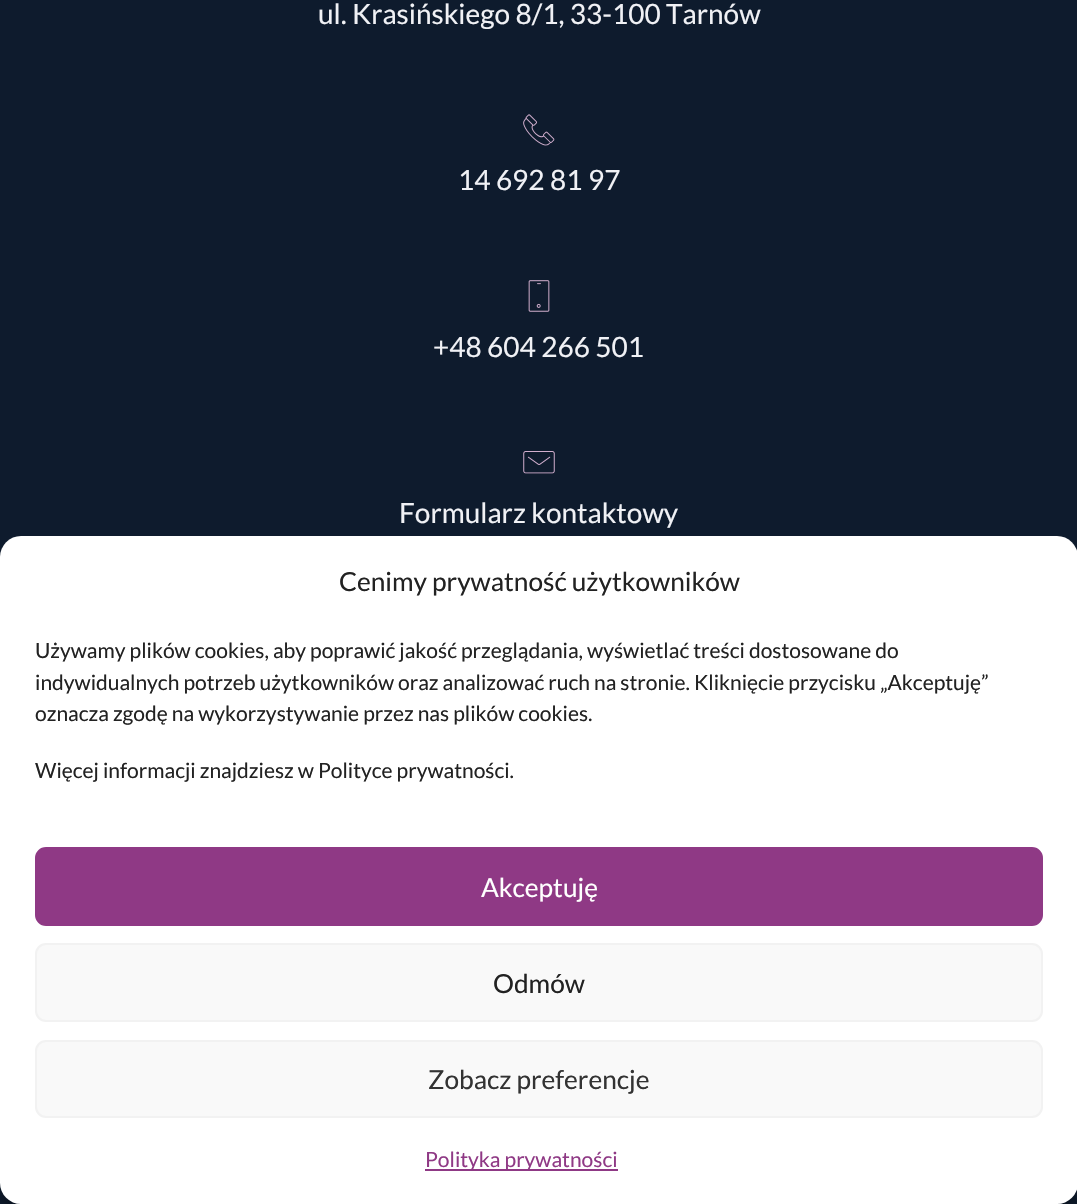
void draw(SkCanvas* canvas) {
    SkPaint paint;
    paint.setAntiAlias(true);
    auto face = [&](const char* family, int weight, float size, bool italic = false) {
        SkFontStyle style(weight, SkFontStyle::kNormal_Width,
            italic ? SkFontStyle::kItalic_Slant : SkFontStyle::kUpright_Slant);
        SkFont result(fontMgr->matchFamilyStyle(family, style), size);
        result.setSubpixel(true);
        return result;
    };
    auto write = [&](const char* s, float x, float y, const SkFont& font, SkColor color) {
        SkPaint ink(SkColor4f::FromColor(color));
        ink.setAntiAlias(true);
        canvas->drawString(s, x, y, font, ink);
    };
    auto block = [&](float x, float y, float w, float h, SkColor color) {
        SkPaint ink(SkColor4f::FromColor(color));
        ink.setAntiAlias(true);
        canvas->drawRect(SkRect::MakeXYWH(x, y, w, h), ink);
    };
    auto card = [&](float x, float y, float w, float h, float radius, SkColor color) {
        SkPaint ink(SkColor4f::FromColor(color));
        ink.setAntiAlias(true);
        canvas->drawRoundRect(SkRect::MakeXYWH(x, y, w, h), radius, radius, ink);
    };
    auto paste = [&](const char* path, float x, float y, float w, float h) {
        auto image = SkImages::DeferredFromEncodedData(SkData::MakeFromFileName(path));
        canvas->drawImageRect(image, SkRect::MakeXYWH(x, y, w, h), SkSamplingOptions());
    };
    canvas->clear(SkColorSetRGB(14, 27, 45));
    auto kFont1 = face("Lato", 400, 28);
    write("ul. Krasińskiego 8/1, 33-100 Tarnów", 318, 24, kFont1, SkColorSetRGB(240, 241, 245));
    paste("pic1.png", 523, 114, 32, 32);
    write("14 692 81 97", 458, 190, kFont1, SkColorSetRGB(240, 241, 245));
    paste("pic2.png", 528, 280, 22, 32);
    write("+48 604 266 501", 433, 357, kFont1, SkColorSetRGB(240, 241, 245));
    paste("pic3.png", 523, 451, 32, 23);
    write("Formularz kontaktowy", 399, 523, kFont1, SkColorSetRGB(240, 241, 245));
    paint.setColor(SkColorSetARGB(59, 0, 0, 0));
    paint.setMaskFilter(SkMaskFilter::MakeBlur(kNormal_SkBlurStyle, 5));
    canvas->drawRoundRect(SkRect::MakeXYWH(0, 546, 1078, 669), 21, 21, paint);
    paint.setMaskFilter(nullptr);
    card(0, 536, 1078, 668, 21, SK_ColorWHITE);
    auto kFont2 = face("Lato", 400, 26.25f);
    write("Cenimy prywatność użytkowników", 339, 591, kFont2, SkColorSetRGB(34, 34, 34));
    auto kFont3 = face("Lato", 400, 21);
    write("Używamy plików cookies, aby poprawić jakość przeglądania, wyświetlać treści dostosowane do", 35, 658, kFont3, SkColorSetRGB(34, 34, 34));
    write("indywidualnych potrzeb użytkowników oraz analizować ruch na stronie. Kliknięcie przycisku „Akceptuję”", 35, 690, kFont3, SkColorSetRGB(34, 34, 34));
    write("oznacza zgodę na wykorzystywanie przez nas plików cookies.", 35, 721, kFont3, SkColorSetRGB(34, 34, 34));
    write("Więcej informacji znajdziesz w Polityce prywatności.", 35, 778, kFont3, SkColorSetRGB(34, 34, 34));
    paint.setColor(SkColorSetRGB(143, 57, 133));
    canvas->drawRoundRect(SkRect::MakeXYWH(36, 848, 1006, 77), 10, 10, paint);
    paint.setStyle(SkPaint::kStroke_Style);
    paint.setStrokeWidth(2);
    canvas->drawRoundRect(SkRect::MakeXYWH(36, 848, 1006, 77), 10, 10, paint);
    write("Akceptuję", 481, 897, kFont2, SK_ColorWHITE);
    paint.setStyle(SkPaint::kFill_Style);
    paint.setColor(SkColorSetRGB(249, 249, 249));
    canvas->drawRoundRect(SkRect::MakeXYWH(36, 944, 1006, 77), 10, 10, paint);
    paint.setStyle(SkPaint::kStroke_Style);
    paint.setColor(SkColorSetRGB(242, 242, 242));
    canvas->drawRoundRect(SkRect::MakeXYWH(36, 944, 1006, 77), 10, 10, paint);
    write("Odmów", 493, 993, kFont2, SkColorSetRGB(34, 34, 34));
    paint.setStyle(SkPaint::kFill_Style);
    paint.setColor(SkColorSetRGB(249, 249, 249));
    canvas->drawRoundRect(SkRect::MakeXYWH(36, 1041, 1006, 76), 10, 10, paint);
    paint.setStyle(SkPaint::kStroke_Style);
    paint.setColor(SkColorSetRGB(242, 242, 242));
    canvas->drawRoundRect(SkRect::MakeXYWH(36, 1041, 1006, 76), 10, 10, paint);
    write("Zobacz preferencje", 428, 1089, kFont2, SkColorSetRGB(51, 51, 51));
    block(425, 1169, 193, 2, SkColorSetRGB(143, 57, 133));
    write("Polityka prywatności", 425, 1167, kFont3, SkColorSetRGB(143, 57, 133));
}
